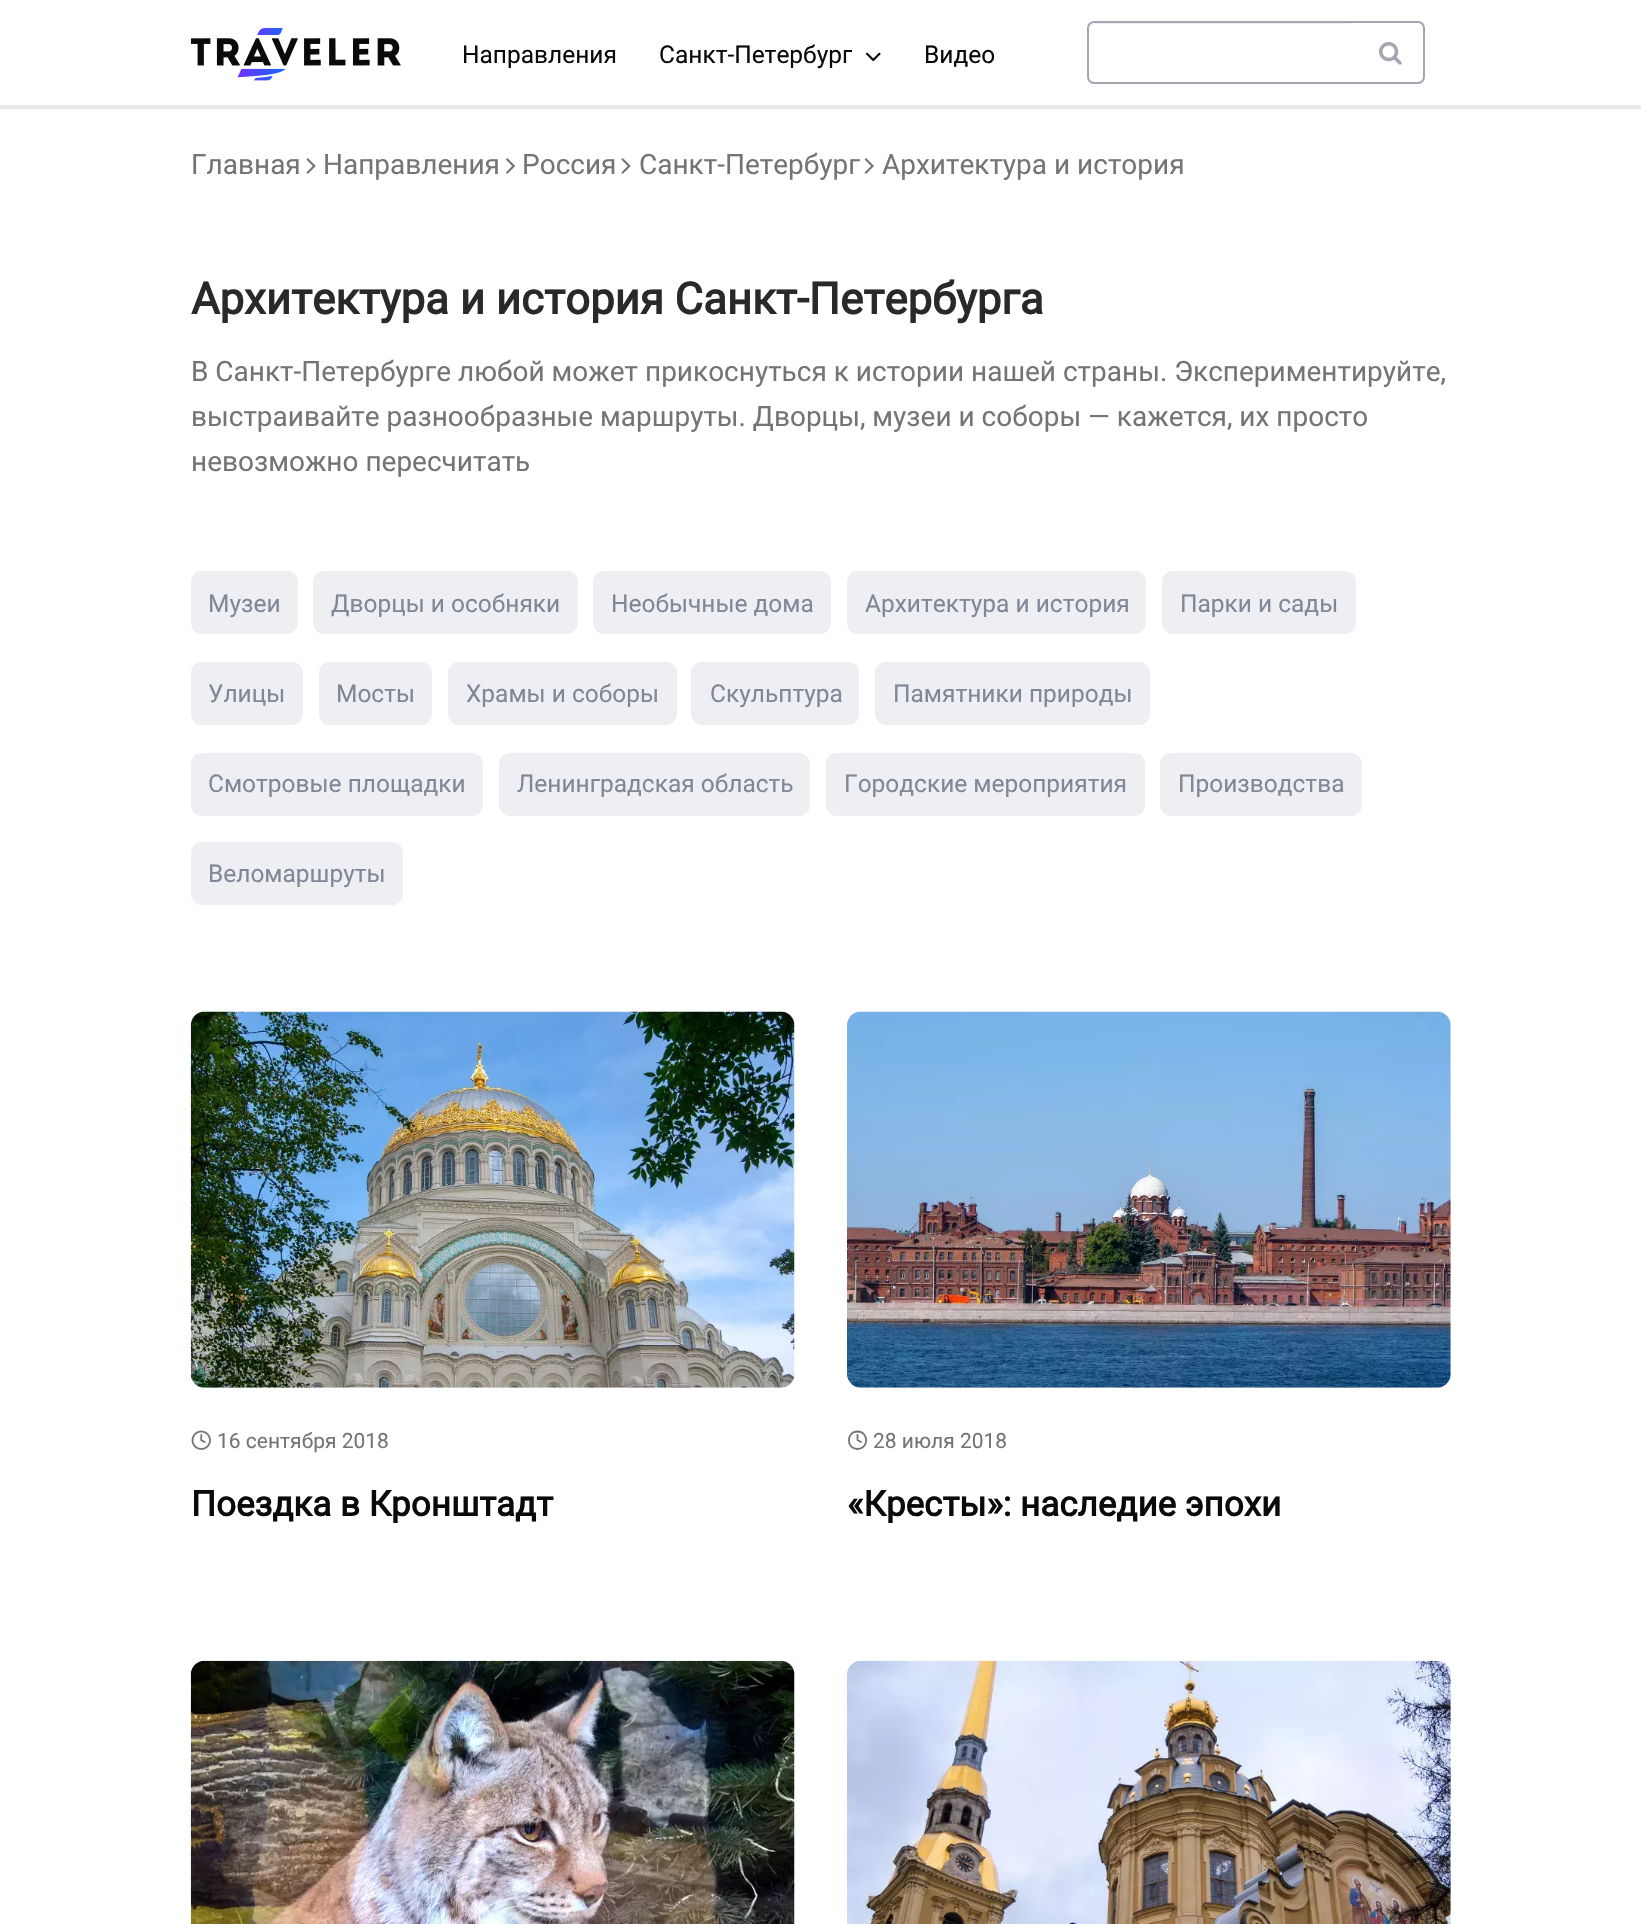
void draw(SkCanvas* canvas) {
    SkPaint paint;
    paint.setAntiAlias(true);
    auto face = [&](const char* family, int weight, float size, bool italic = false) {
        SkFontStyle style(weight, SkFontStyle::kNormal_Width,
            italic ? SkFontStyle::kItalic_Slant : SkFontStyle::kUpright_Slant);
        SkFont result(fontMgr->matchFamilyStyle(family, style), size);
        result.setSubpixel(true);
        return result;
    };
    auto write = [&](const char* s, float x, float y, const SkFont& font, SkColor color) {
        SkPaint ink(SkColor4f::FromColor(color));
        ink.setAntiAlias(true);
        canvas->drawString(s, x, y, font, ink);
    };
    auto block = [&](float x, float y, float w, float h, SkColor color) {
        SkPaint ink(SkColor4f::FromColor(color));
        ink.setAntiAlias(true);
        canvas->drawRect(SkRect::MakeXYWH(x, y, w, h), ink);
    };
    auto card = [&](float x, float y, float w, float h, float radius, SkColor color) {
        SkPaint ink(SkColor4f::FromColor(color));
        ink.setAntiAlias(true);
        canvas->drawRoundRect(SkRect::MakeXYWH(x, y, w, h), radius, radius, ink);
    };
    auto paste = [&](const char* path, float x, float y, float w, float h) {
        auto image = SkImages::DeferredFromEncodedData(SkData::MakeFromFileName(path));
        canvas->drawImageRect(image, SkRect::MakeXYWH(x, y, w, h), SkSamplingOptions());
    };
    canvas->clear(SK_ColorWHITE);
    block(0, 105, 1641, 4, SkColorSetRGB(232, 232, 232));
    paste("pic1.png", 191, 28, 210, 53);
    auto kFont1 = face("Roboto", 400, 24.5f);
    write("Направления", 462, 63, kFont1, SkColorSetRGB(10, 10, 10));
    write("Санкт-Петербург", 659, 63, kFont1, SkColorSetRGB(10, 10, 10));
    paste("pic2.png", 866, 52, 15, 10);
    write("Видео", 924, 63, kFont1, SkColorSetRGB(10, 10, 10));
    paint.setStyle(SkPaint::kStroke_Style);
    paint.setStrokeWidth(2);
    paint.setColor(SkColorSetRGB(164, 165, 177));
    canvas->drawRoundRect(SkRect::MakeXYWH(1088, 22, 336, 61), 6, 6, paint);
    paint.setStyle(SkPaint::kFill_Style);
    paint.setColor(SkColorSetARGB(18, 0, 0, 0));
    canvas->drawPath(SkPathBuilder().moveTo(1096, 24).lineTo(1351, 24).lineTo(1351, 23).lineTo(1096, 23).cubicTo(1093, 23, 1090, 25, 1089, 28).cubicTo(1091, 26, 1093, 24, 1096, 24).close().detach(), paint);
    paste("pic3.png", 1379, 42, 23, 23);
    auto kFont2 = face("Roboto", 400, 28);
    write("Главная", 191, 174, kFont2, SkColorSetRGB(116, 116, 116));
    paste("pic4.png", 306, 158, 10, 16);
    write("Направления", 323, 174, kFont2, SkColorSetRGB(116, 116, 116));
    paste("pic5.png", 506, 158, 9, 16);
    write("Россия", 522, 174, kFont2, SkColorSetRGB(116, 116, 116));
    paste("pic4.png", 621, 158, 10, 16);
    write("Санкт-Петербург", 639, 174, kFont2, SkColorSetRGB(116, 116, 116));
    paste("pic6.png", 864, 158, 10, 16);
    write("Архитектура и история", 882, 174, kFont2, SkColorSetRGB(116, 116, 116));
    auto kFont3 = face("Roboto", 700, 43.75f);
    write("Архитектура и история Санкт-Петербурга", 191, 314, kFont3, SkColorSetRGB(41, 41, 41));
    write("В Санкт-Петербурге любой может прикоснуться к истории нашей страны. Экспериментируйте,", 191, 381, kFont2, SkColorSetRGB(116, 116, 116));
    write("выстраивайте разнообразные маршруты. Дворцы, музеи и соборы — кажется, их просто", 191, 426, kFont2, SkColorSetRGB(116, 116, 116));
    write("невозможно пересчитать", 191, 471, kFont2, SkColorSetRGB(116, 116, 116));
    card(191, 571, 107, 63, 11, SkColorSetRGB(238, 239, 243));
    write("Музеи", 208, 612, kFont1, SkColorSetRGB(130, 134, 150));
    card(313, 571, 265, 63, 11, SkColorSetRGB(238, 239, 243));
    write("Дворцы и особняки", 331, 612, kFont1, SkColorSetRGB(130, 134, 150));
    card(593, 571, 238, 63, 11, SkColorSetRGB(238, 239, 243));
    write("Необычные дома", 611, 612, kFont1, SkColorSetRGB(130, 134, 150));
    card(847, 571, 299, 63, 11, SkColorSetRGB(238, 239, 243));
    write("Архитектура и история", 865, 612, kFont1, SkColorSetRGB(130, 134, 150));
    card(1162, 571, 194, 63, 11, SkColorSetRGB(238, 239, 243));
    write("Парки и сады", 1180, 612, kFont1, SkColorSetRGB(130, 134, 150));
    card(191, 662, 112, 63, 11, SkColorSetRGB(238, 239, 243));
    write("Улицы", 208, 702, kFont1, SkColorSetRGB(130, 134, 150));
    card(319, 662, 113, 63, 11, SkColorSetRGB(238, 239, 243));
    write("Мосты", 336, 702, kFont1, SkColorSetRGB(130, 134, 150));
    card(448, 662, 229, 63, 11, SkColorSetRGB(238, 239, 243));
    write("Храмы и соборы", 466, 702, kFont1, SkColorSetRGB(130, 134, 150));
    card(691, 662, 168, 63, 11, SkColorSetRGB(238, 239, 243));
    write("Скульптура", 710, 702, kFont1, SkColorSetRGB(130, 134, 150));
    card(875, 662, 275, 63, 11, SkColorSetRGB(238, 239, 243));
    write("Памятники природы", 893, 702, kFont1, SkColorSetRGB(130, 134, 150));
    card(191, 753, 292, 63, 11, SkColorSetRGB(238, 239, 243));
    write("Смотровые площадки", 208, 792, kFont1, SkColorSetRGB(130, 134, 150));
    card(499, 753, 311, 63, 11, SkColorSetRGB(238, 239, 243));
    write("Ленинградская область", 517, 792, kFont1, SkColorSetRGB(130, 134, 150));
    card(826, 753, 319, 63, 11, SkColorSetRGB(238, 239, 243));
    write("Городские мероприятия", 844, 792, kFont1, SkColorSetRGB(130, 134, 150));
    card(1160, 753, 202, 63, 11, SkColorSetRGB(238, 239, 243));
    write("Производства", 1178, 792, kFont1, SkColorSetRGB(130, 134, 150));
    card(191, 842, 212, 63, 11, SkColorSetRGB(238, 239, 243));
    write("Веломаршруты", 208, 882, kFont1, SkColorSetRGB(130, 134, 150));
    paste("pic7.png", 190, 1011, 605, 377);
    paste("pic8.png", 191, 1430, 20, 20);
    auto kFont4 = face("Roboto", 400, 21);
    write("16 сентября 2018", 217, 1448, kFont4, SkColorSetRGB(116, 116, 116));
    auto kFont5 = face("Roboto", 700, 35);
    write("Поездка в Кронштадт", 191, 1516, kFont5, SkColorSetRGB(10, 10, 10));
    paste("pic9.png", 847, 1011, 604, 377);
    paint.setStyle(SkPaint::kStroke_Style);
    paint.setStrokeWidth(1.8f);
    paint.setStrokeCap(SkPaint::kRound_Cap);
    paint.setStrokeJoin(SkPaint::kRound_Join);
    paint.setColor(SkColorSetRGB(116, 116, 116));
    canvas->drawPath(SkPathBuilder().moveTo(857.5f, 1449).cubicTo(869, 1449, 869, 1431.5f, 857.5f, 1431.5f).cubicTo(846, 1431.5f, 846, 1449, 857.5f, 1449).close().moveTo(857.5f, 1435).lineTo(857.5f, 1440).lineTo(861, 1442).detach(), paint);
    write("28 июля 2018", 873, 1448, kFont4, SkColorSetRGB(116, 116, 116));
    write("«Кресты»: наследие эпохи", 847, 1516, kFont5, SkColorSetRGB(10, 10, 10));
    paste("pic10.png", 190, 1660, 605, 264);
    paste("pic11.png", 847, 1660, 604, 264);
}
